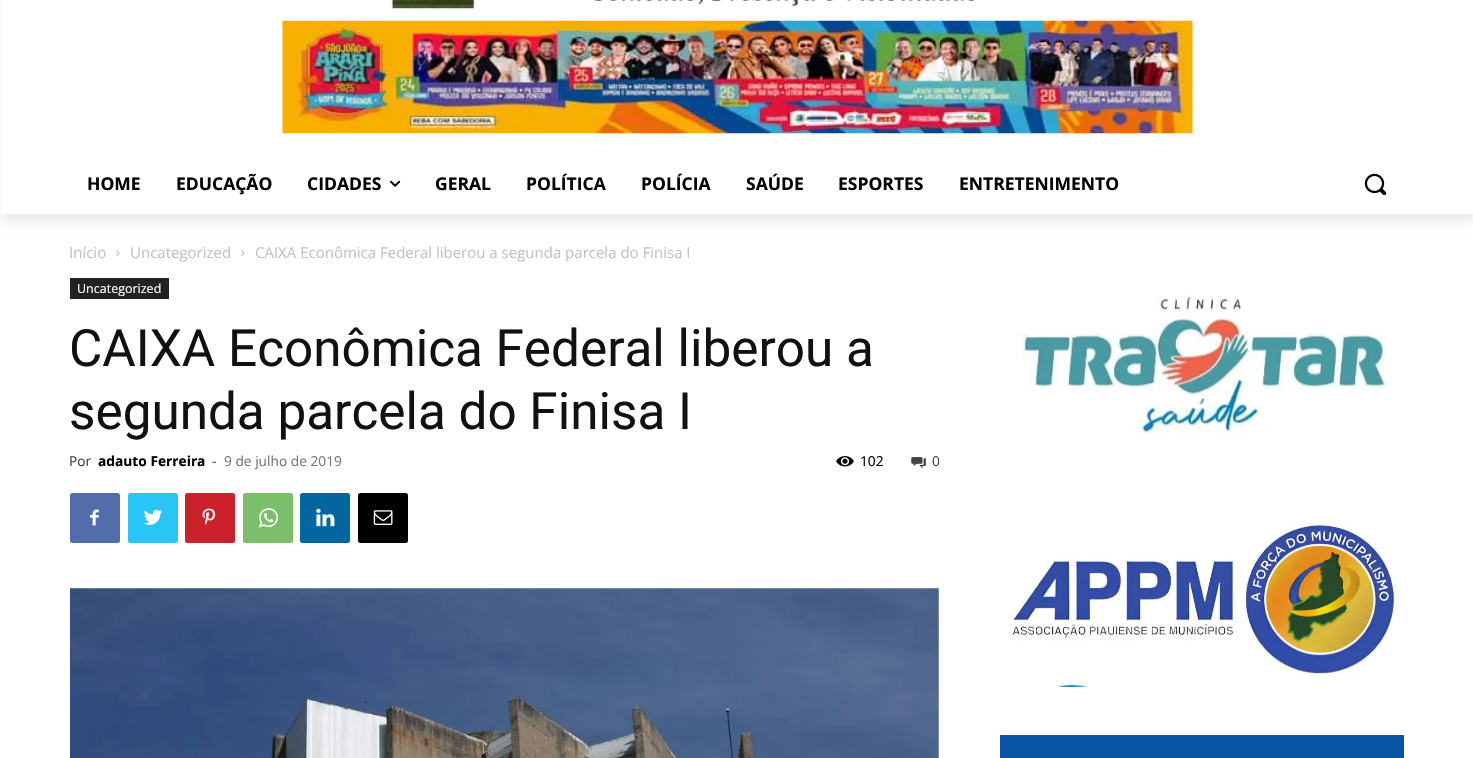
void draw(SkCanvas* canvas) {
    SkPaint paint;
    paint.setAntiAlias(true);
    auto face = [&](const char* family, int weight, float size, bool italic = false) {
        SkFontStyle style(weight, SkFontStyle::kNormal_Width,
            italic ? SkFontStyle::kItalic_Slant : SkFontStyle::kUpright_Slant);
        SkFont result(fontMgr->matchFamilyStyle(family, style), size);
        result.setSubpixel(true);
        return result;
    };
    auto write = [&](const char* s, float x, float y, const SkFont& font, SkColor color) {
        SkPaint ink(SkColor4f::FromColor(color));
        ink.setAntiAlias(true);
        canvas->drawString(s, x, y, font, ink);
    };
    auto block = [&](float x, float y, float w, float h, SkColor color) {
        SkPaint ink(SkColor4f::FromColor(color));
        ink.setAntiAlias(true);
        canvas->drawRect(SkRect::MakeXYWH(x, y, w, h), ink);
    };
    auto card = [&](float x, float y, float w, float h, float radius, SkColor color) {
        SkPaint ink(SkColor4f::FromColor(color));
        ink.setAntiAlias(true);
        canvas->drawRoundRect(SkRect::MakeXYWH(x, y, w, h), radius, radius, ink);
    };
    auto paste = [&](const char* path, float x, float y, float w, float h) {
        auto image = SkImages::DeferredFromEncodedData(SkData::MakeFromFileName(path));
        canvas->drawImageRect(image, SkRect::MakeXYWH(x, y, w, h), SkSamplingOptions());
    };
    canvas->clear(SK_ColorWHITE);
    paste("pic1.png", 391, 0, 584, 9);
    paste("pic2.png", 282, 20, 911, 114);
    canvas->save();
    canvas->clipPath(SkPathBuilder(SkPathFillType::kEvenOdd).moveTo(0, 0).lineTo(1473, 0).lineTo(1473, 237).lineTo(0, 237).close().moveTo(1, -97).lineTo(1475, -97).lineTo(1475, 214).lineTo(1, 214).close().detach(), true);
    paint.setColor(SkColorSetARGB(20, 0, 0, 0));
    paint.setMaskFilter(SkMaskFilter::MakeBlur(kNormal_SkBlurStyle, 5));
    canvas->drawRect(SkRect::MakeXYWH(1, -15, 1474, 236), paint);
    paint.setMaskFilter(nullptr);
    canvas->restore();
    auto kFont1 = face("Open Sans", 700, 17.5f);
    write("HOME", 87, 190, kFont1, SK_ColorBLACK);
    write("EDUCAÇÃO", 176, 190, kFont1, SK_ColorBLACK);
    write("CIDADES", 307, 190, kFont1, SK_ColorBLACK);
    paste("pic3.png", 390, 180, 11, 7);
    write("GERAL", 435, 190, kFont1, SK_ColorBLACK);
    write("POLÍTICA", 526, 190, kFont1, SK_ColorBLACK);
    write("POLÍCIA", 641, 190, kFont1, SK_ColorBLACK);
    write("SAÚDE", 746, 190, kFont1, SK_ColorBLACK);
    write("ESPORTES", 838, 190, kFont1, SK_ColorBLACK);
    write("ENTRETENIMENTO", 959, 190, kFont1, SK_ColorBLACK);
    paste("pic4.png", 1364, 173, 23, 23);
    auto kFont2 = face("Open Sans", 400, 15);
    write("Início", 69, 258, kFont2, SkColorSetRGB(195, 195, 195));
    paste("pic5.png", 116, 250, 4, 6);
    write("Uncategorized", 130, 258, kFont2, SkColorSetRGB(195, 195, 195));
    paste("pic5.png", 241, 250, 4, 6);
    write("CAIXA Econômica Federal liberou a segunda parcela do Finisa I", 255, 258, kFont2, SkColorSetRGB(195, 195, 195));
    block(70, 278, 99, 21, SkColorSetRGB(34, 34, 34));
    auto kFont3 = face("Open Sans", 400, 12.5f);
    write("Uncategorized", 77, 293, kFont3, SK_ColorWHITE);
    auto kFont4 = face("Roboto", 400, 51.25f);
    write("CAIXA Econômica Federal liberou a", 69, 366, kFont4, SkColorSetRGB(17, 17, 17));
    write("segunda parcela do Finisa I", 69, 429, kFont4, SkColorSetRGB(17, 17, 17));
    auto kFont5 = face("Open Sans", 400, 13.75f);
    write("Por", 69, 466, kFont5, SkColorSetRGB(68, 68, 68));
    auto kFont6 = face("Open Sans", 700, 13.75f);
    write("adauto Ferreira", 98, 466, kFont6, SK_ColorBLACK);
    write("-", 212, 466, kFont5, SkColorSetRGB(68, 68, 68));
    write("9 de julho de 2019", 224, 466, kFont5, SkColorSetRGB(118, 118, 118));
    paste("pic6.png", 836, 456, 18, 11);
    write("102", 860, 466, kFont5, SK_ColorBLACK);
    paste("pic7.png", 911, 457, 15, 12);
    write("0", 932, 466, kFont5, SkColorSetRGB(68, 68, 68));
    card(70, 493, 50, 50, 2.5f, SkColorSetRGB(81, 110, 171));
    paste("pic8.png", 90, 509, 9, 17);
    card(128, 493, 50, 50, 2.5f, SkColorSetRGB(41, 197, 246));
    paste("pic9.png", 144, 509, 18, 16);
    card(185, 493, 50, 50, 2.5f, SkColorSetRGB(202, 33, 42));
    paste("pic10.png", 202, 508, 14, 17);
    card(243, 493, 50, 50, 2.5f, SkColorSetRGB(123, 191, 106));
    paste("pic11.png", 258, 508, 20, 20);
    card(300, 493, 50, 50, 2.5f, SkColorSetRGB(2, 102, 160));
    paste("pic12.png", 316, 508, 19, 19);
    card(358, 493, 50, 50, 2.5f, SK_ColorBLACK);
    paste("pic13.png", 373, 510, 20, 15);
    paste("pic14.png", 70, 588, 869, 170);
    paste("pic15.png", 1021, 295, 366, 140);
    paste("pic16.png", 1012, 524, 385, 163);
    block(1000, 735, 404, 23, SkColorSetRGB(10, 86, 166));
}
